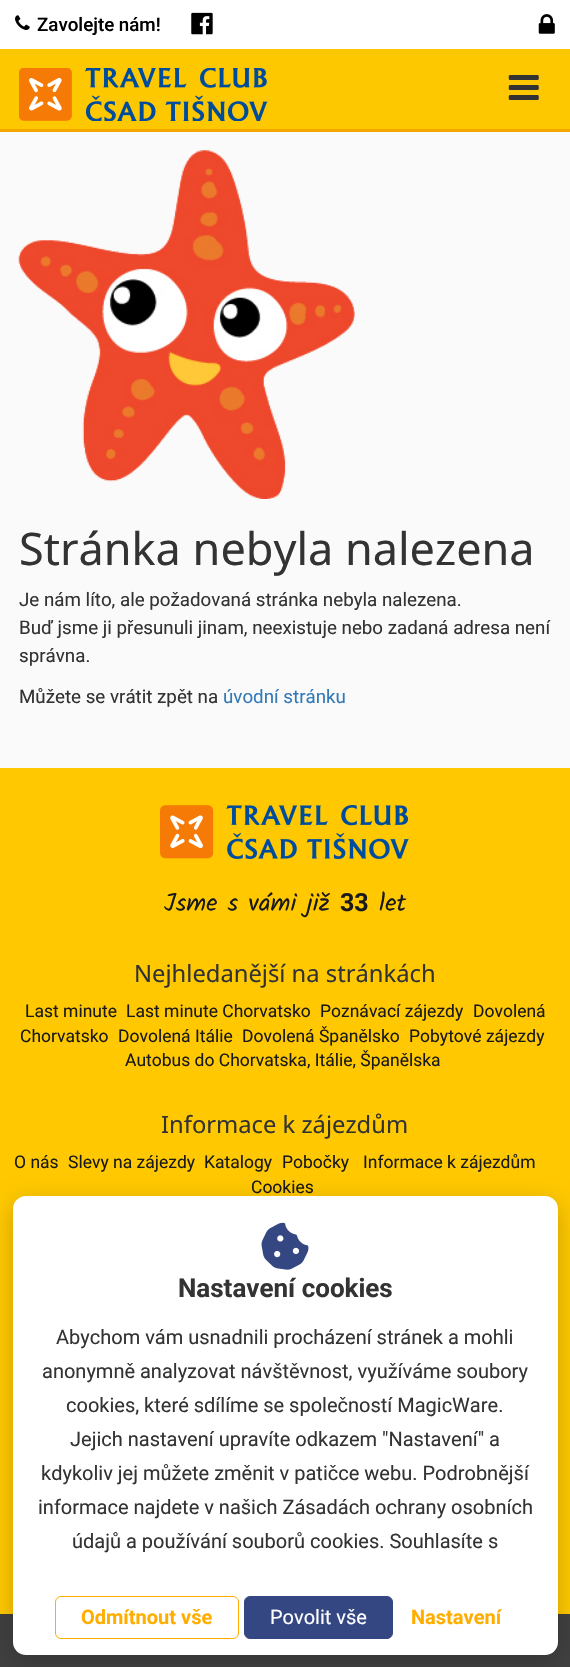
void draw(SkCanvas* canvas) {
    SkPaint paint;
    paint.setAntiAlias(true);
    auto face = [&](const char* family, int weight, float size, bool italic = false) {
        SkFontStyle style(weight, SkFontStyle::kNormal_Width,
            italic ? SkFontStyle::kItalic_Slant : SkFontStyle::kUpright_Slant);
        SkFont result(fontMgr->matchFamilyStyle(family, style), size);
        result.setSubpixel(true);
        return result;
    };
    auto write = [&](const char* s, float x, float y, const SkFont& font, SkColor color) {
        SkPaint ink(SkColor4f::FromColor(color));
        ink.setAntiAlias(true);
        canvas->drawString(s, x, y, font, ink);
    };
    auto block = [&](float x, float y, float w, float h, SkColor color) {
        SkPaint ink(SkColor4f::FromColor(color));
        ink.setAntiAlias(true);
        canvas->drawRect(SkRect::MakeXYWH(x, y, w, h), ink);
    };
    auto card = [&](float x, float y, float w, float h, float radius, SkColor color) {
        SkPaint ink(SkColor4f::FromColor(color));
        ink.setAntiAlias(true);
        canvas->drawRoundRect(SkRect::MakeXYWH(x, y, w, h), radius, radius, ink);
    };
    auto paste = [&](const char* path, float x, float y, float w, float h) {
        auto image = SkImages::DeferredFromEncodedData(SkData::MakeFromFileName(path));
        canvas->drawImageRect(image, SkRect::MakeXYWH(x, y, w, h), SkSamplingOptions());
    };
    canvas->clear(SkColorSetRGB(64, 64, 64));
    block(0, 0, 570, 49, SK_ColorWHITE);
    paste("pic1.png", 15, 15, 15, 15);
    auto kFont1 = face("Roboto", 500, 18.75f);
    write("Zavolejte nám!", 37, 31, kFont1, SK_ColorBLACK);
    paste("pic2.png", 191, 12, 22, 23);
    paste("pic3.png", 538, 14, 17, 20);
    block(0, 49, 570, 80, SkColorSetRGB(254, 200, 0));
    block(0, 129, 570, 3, SkColorSetRGB(245, 167, 0));
    paste("pic4.png", 19, 68, 249, 53);
    paste("pic5.png", 508, 75, 31, 25);
    block(0, 132, 570, 636, SkColorSetRGB(250, 250, 250));
    paste("pic6.png", 18, 150, 337, 349);
    auto kFont2 = face("Noto Sans", 400, 45);
    write("Stránka nebyla nalezena", 19, 565, kFont2, SkColorSetRGB(51, 51, 51));
    auto kFont3 = face("Roboto", 400, 18.75f);
    write("Je nám líto, ale požadovaná stránka nebyla nalezena.", 19, 606, kFont3, SkColorSetRGB(51, 51, 51));
    write("Buď jsme ji přesunuli jinam, neexistuje nebo zadaná adresa není", 19, 634, kFont3, SkColorSetRGB(51, 51, 51));
    write("správna.", 19, 662, kFont3, SkColorSetRGB(51, 51, 51));
    write("Můžete se vrátit zpět na", 19, 703, kFont3, SkColorSetRGB(51, 51, 51));
    write("úvodní stránku", 223, 703, kFont3, SkColorSetRGB(51, 122, 183));
    block(0, 768, 570, 846, SkColorSetRGB(255, 200, 0));
    paste("pic7.png", 160, 805, 249, 54);
    auto kFont4 = face("Kalam", 400, 25);
    write("Jsme s vámi již", 164, 911, kFont4, SkColorSetRGB(26, 26, 26));
    auto kFont5 = face("Roboto", 700, 25);
    write("33", 340, 911, kFont5, SkColorSetRGB(26, 26, 26));
    write("let", 379, 911, kFont4, SkColorSetRGB(26, 26, 26));
    auto kFont6 = face("Noto Sans", 400, 23.75f);
    write("Nejhledanější na stránkách", 134, 982, kFont6, SkColorSetRGB(51, 51, 51));
    auto kFont7 = face("Roboto", 400, 17.5f);
    write("Last minute", 25, 1017, kFont7, SkColorSetRGB(26, 26, 26));
    write("Last minute Chorvatsko", 126, 1017, kFont7, SkColorSetRGB(26, 26, 26));
    write("Poznávací zájezdy", 320, 1017, kFont7, SkColorSetRGB(26, 26, 26));
    write("Dovolená", 473, 1017, kFont7, SkColorSetRGB(26, 26, 26));
    write("Chorvatsko", 20, 1042, kFont7, SkColorSetRGB(26, 26, 26));
    write("Dovolená Itálie", 118, 1042, kFont7, SkColorSetRGB(26, 26, 26));
    write("Dovolená Španělsko", 242, 1042, kFont7, SkColorSetRGB(26, 26, 26));
    write("Pobytové zájezdy", 409, 1042, kFont7, SkColorSetRGB(26, 26, 26));
    write("Autobus do Chorvatska, Itálie, Španělska", 125, 1066, kFont7, SkColorSetRGB(26, 26, 26));
    write("Informace k zájezdům", 161, 1133, kFont6, SkColorSetRGB(51, 51, 51));
    write("O nás", 14, 1168, kFont7, SkColorSetRGB(26, 26, 26));
    write("Slevy na zájezdy", 68, 1168, kFont7, SkColorSetRGB(26, 26, 26));
    write("Katalogy", 204, 1168, kFont7, SkColorSetRGB(26, 26, 26));
    write("Pobočky", 282, 1168, kFont7, SkColorSetRGB(26, 26, 26));
    write("Informace k zájezdům", 363, 1168, kFont7, SkColorSetRGB(26, 26, 26));
    write("Cookies", 251, 1193, kFont7, SkColorSetRGB(26, 26, 26));
    paint.setColor(SkColorSetARGB(51, 0, 0, 0));
    paint.setMaskFilter(SkMaskFilter::MakeBlur(kNormal_SkBlurStyle, 12.5f));
    canvas->drawRoundRect(SkRect::MakeXYWH(13, 1203, 545, 458), 13, 13, paint);
    paint.setMaskFilter(nullptr);
    card(13, 1196, 545, 459, 13, SK_ColorWHITE);
    paste("pic8.png", 261, 1222, 48, 48);
    auto kFont8 = face("Roboto", 700, 26);
    write("Nastavení cookies", 178, 1297, kFont8, SkColorSetRGB(51, 51, 51));
    auto kFont9 = face("Roboto", 400, 20);
    write("Abychom vám usnadnili procházení stránek a mohli", 56, 1344, kFont9, SkColorSetRGB(51, 51, 51));
    write("anonymně analyzovat návštěvnost, využíváme soubory", 42, 1378, kFont9, SkColorSetRGB(51, 51, 51));
    write("cookies, které sdílíme se společností MagicWare.", 66, 1412, kFont9, SkColorSetRGB(51, 51, 51));
    write("Jejich nastavení upravíte odkazem \"Nastavení\" a", 70, 1446, kFont9, SkColorSetRGB(51, 51, 51));
    write("kdykoliv jej můžete změnit v patičce webu. Podrobnější", 41, 1480, kFont9, SkColorSetRGB(51, 51, 51));
    write("informace najdete v našich Zásadách ochrany osobních", 38, 1514, kFont9, SkColorSetRGB(51, 51, 51));
    write("údajů a používání souborů cookies. Souhlasíte s", 72, 1548, kFont9, SkColorSetRGB(51, 51, 51));
    paint.setStyle(SkPaint::kStroke_Style);
    paint.setStrokeWidth(1);
    paint.setColor(SkColorSetRGB(255, 174, 0));
    canvas->drawRoundRect(SkRect::MakeXYWH(55.5f, 1596.5f, 183, 42), 5.5f, 5.5f, paint);
    auto kFont10 = face("Roboto", 700, 20);
    write("Odmítnout vše", 81, 1624, kFont10, SkColorSetRGB(255, 174, 0));
    paint.setStyle(SkPaint::kFill_Style);
    paint.setColor(SkColorSetRGB(52, 71, 130));
    canvas->drawRoundRect(SkRect::MakeXYWH(244.5f, 1596.5f, 148, 42), 5.5f, 5.5f, paint);
    paint.setStyle(SkPaint::kStroke_Style);
    canvas->drawRoundRect(SkRect::MakeXYWH(244.5f, 1596.5f, 148, 42), 5.5f, 5.5f, paint);
    write("Povolit vše", 270, 1624, kFont9, SK_ColorWHITE);
    write("Nastavení", 411, 1624, kFont10, SkColorSetRGB(255, 174, 0));
}
